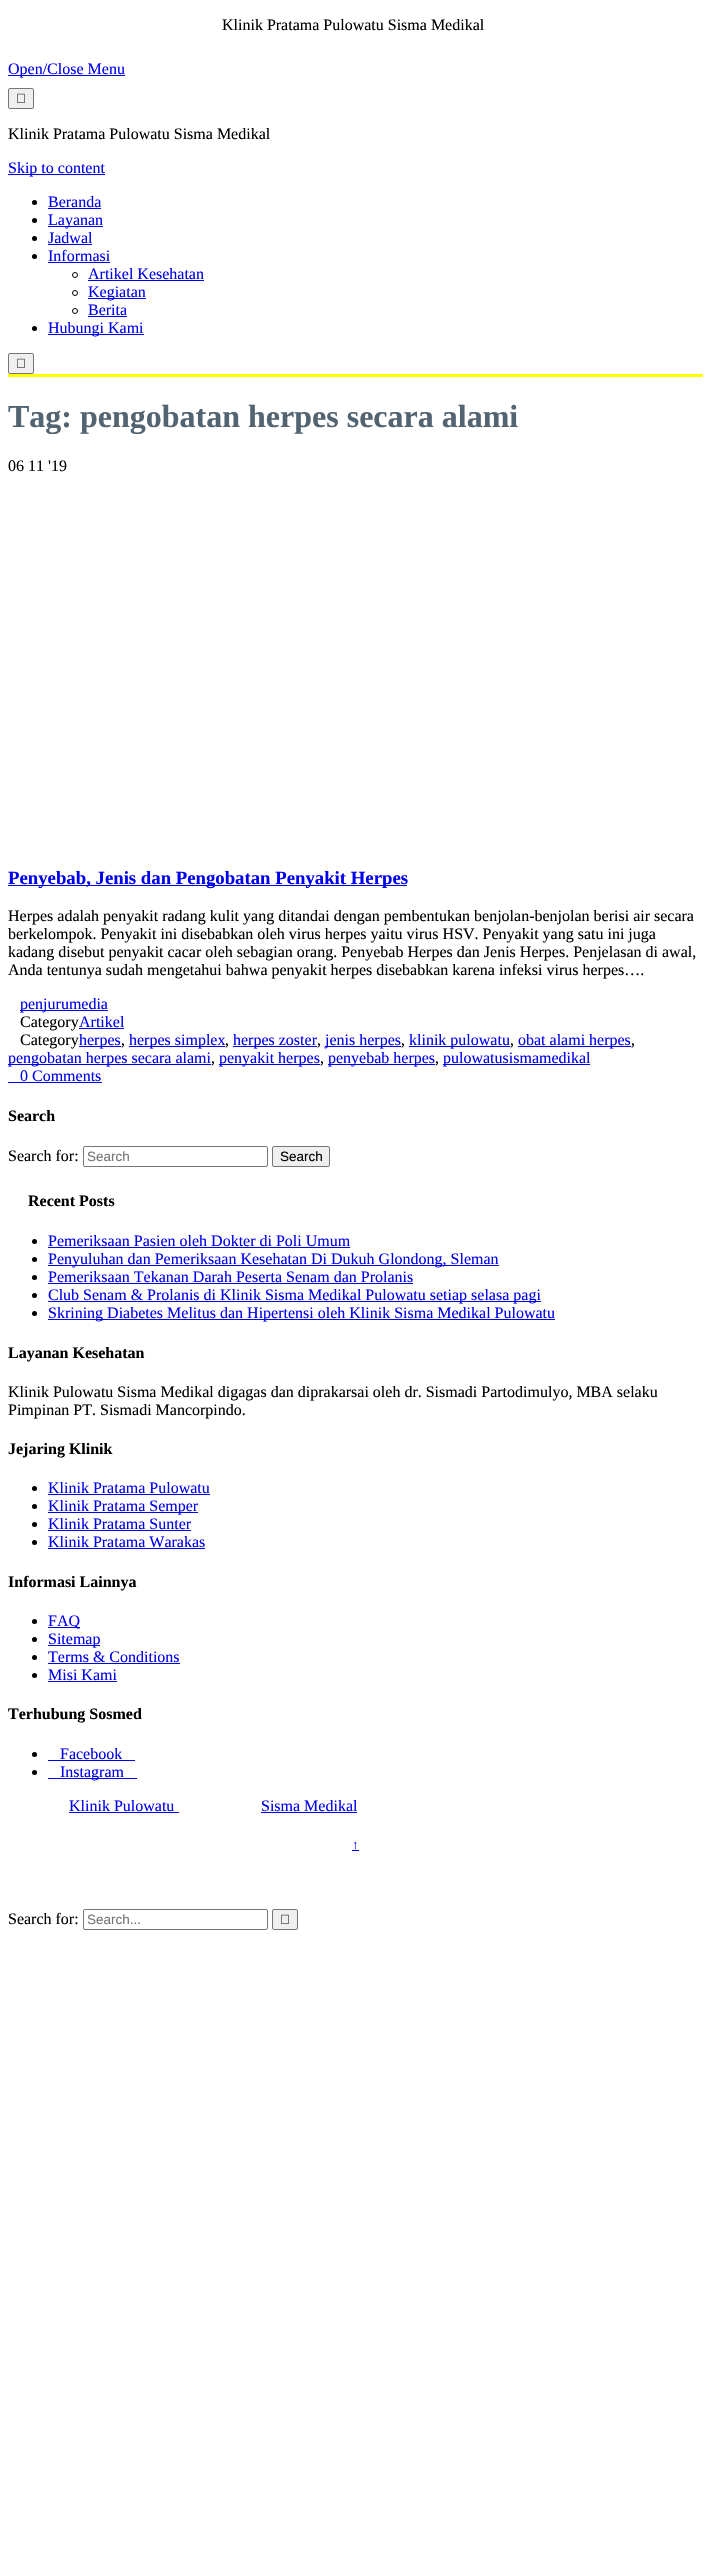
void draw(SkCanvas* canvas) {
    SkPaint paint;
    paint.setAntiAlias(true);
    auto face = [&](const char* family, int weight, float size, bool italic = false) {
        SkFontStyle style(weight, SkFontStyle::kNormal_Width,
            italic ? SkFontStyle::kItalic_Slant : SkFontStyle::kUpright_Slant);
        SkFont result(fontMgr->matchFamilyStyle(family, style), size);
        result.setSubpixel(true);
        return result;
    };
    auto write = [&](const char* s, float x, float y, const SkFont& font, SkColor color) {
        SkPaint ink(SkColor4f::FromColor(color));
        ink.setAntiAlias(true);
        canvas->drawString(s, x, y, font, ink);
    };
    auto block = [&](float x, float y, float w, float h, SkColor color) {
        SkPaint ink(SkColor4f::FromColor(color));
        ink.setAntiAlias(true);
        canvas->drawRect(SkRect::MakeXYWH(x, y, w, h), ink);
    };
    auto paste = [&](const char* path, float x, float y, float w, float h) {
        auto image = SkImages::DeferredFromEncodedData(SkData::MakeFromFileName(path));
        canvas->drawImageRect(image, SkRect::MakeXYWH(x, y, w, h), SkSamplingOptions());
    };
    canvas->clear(SK_ColorWHITE);
    auto kFont1 = face("Liberation Serif", 400, 16);
    write("Klinik Pratama Pulowatu Sisma Medikal", 222, 30, kFont1, SK_ColorBLACK);
    block(8, 75, 117, 1, SkColorSetRGB(0, 0, 238));
    write("Open/Close Menu", 8, 74, kFont1, SkColorSetRGB(0, 0, 238));
    paint.setColor(SkColorSetRGB(239, 239, 239));
    canvas->drawRoundRect(SkRect::MakeXYWH(8.5f, 88.5f, 25, 20), 1.5f, 1.5f, paint);
    paint.setStyle(SkPaint::kStroke_Style);
    paint.setStrokeWidth(1);
    paint.setColor(SkColorSetRGB(118, 118, 118));
    canvas->drawRoundRect(SkRect::MakeXYWH(8.5f, 88.5f, 25, 20), 1.5f, 1.5f, paint);
    paste("pic1.png", 17, 93, 8, 10);
    write("Klinik Pratama Pulowatu Sisma Medikal", 8, 139, kFont1, SK_ColorBLACK);
    block(8, 374, 695, 3, SkColorSetRGB(255, 255, 0));
    block(8, 174, 97, 1, SkColorSetRGB(0, 0, 238));
    write("Skip to content", 8, 173, kFont1, SkColorSetRGB(0, 0, 238));
    paint.setStyle(SkPaint::kFill_Style);
    paint.setColor(SK_ColorBLACK);
    canvas->drawCircle(34.5f, 202.5f, 2.5f, paint);
    write("Beranda", 48, 207, kFont1, SkColorSetRGB(0, 0, 238));
    block(48, 208, 53, 1, SkColorSetRGB(0, 0, 238));
    canvas->drawCircle(34.5f, 220.5f, 2.5f, paint);
    block(48, 226, 55, 1, SkColorSetRGB(0, 0, 238));
    write("Layanan", 48, 225, kFont1, SkColorSetRGB(0, 0, 238));
    canvas->drawCircle(34.5f, 238.5f, 2.5f, paint);
    write("Jadwal", 48, 243, kFont1, SkColorSetRGB(0, 0, 238));
    block(48, 244, 44, 1, SkColorSetRGB(0, 0, 238));
    canvas->drawCircle(34.5f, 256.5f, 2.5f, paint);
    write("Informasi", 48, 261, kFont1, SkColorSetRGB(0, 0, 238));
    block(48, 262, 62, 1, SkColorSetRGB(0, 0, 238));
    paint.setStyle(SkPaint::kStroke_Style);
    canvas->drawCircle(75, 275, 2.5f, paint);
    write("Artikel Kesehatan", 88, 279, kFont1, SkColorSetRGB(0, 0, 238));
    block(88, 280, 116, 1, SkColorSetRGB(0, 0, 238));
    canvas->drawCircle(75, 293, 2.5f, paint);
    block(88, 298, 58, 1, SkColorSetRGB(0, 0, 238));
    write("Kegiatan", 88, 297, kFont1, SkColorSetRGB(0, 0, 238));
    canvas->drawCircle(75, 311, 2.5f, paint);
    write("Berita", 88, 315, kFont1, SkColorSetRGB(0, 0, 238));
    block(88, 316, 39, 1, SkColorSetRGB(0, 0, 238));
    paint.setStyle(SkPaint::kFill_Style);
    canvas->drawCircle(34.5f, 328.5f, 2.5f, paint);
    block(48, 334, 96, 1, SkColorSetRGB(0, 0, 238));
    write("Hubungi Kami", 48, 333, kFont1, SkColorSetRGB(0, 0, 238));
    paint.setColor(SkColorSetRGB(239, 239, 239));
    canvas->drawRoundRect(SkRect::MakeXYWH(8.5f, 353.5f, 25, 20), 1.5f, 1.5f, paint);
    paint.setStyle(SkPaint::kStroke_Style);
    paint.setColor(SkColorSetRGB(118, 118, 118));
    canvas->drawRoundRect(SkRect::MakeXYWH(8.5f, 353.5f, 25, 20), 1.5f, 1.5f, paint);
    paste("pic1.png", 17, 358, 8, 10);
    auto kFont2 = face("Liberation Serif", 700, 32);
    write("Tag: pengobatan herpes secara alami", 8, 427, kFont2, SkColorSetRGB(82, 99, 113));
    write("06 11 '19", 8, 471, kFont1, SK_ColorBLACK);
    block(8, 885, 399, 1, SkColorSetRGB(0, 0, 238));
    auto kFont3 = face("Liberation Serif", 700, 18.75f);
    write("Penyebab, Jenis dan Pengobatan Penyakit Herpes", 8, 884, kFont3, SkColorSetRGB(0, 0, 238));
    write("Herpes adalah penyakit radang kulit yang ditandai dengan pembentukan benjolan-benjolan berisi air secara", 8, 921, kFont1, SK_ColorBLACK);
    write("berkelompok. Penyakit ini disebabkan oleh virus herpes yaitu virus HSV. Penyakit yang satu ini juga", 8, 939, kFont1, SK_ColorBLACK);
    write("kadang disebut penyakit cacar oleh sebagian orang. Penyebab Herpes dan Jenis Herpes. Penjelasan di awal,", 8, 957, kFont1, SK_ColorBLACK);
    write("Anda tentunya sudah mengetahui bahwa penyakit herpes disebabkan karena infeksi virus herpes….", 8, 975, kFont1, SK_ColorBLACK);
    block(20, 1010, 88, 1, SkColorSetRGB(0, 0, 238));
    write("penjurumedia", 20, 1009, kFont1, SkColorSetRGB(0, 0, 238));
    write("Category", 20, 1027, kFont1, SK_ColorBLACK);
    write("Artikel", 79, 1027, kFont1, SkColorSetRGB(0, 0, 238));
    block(79, 1028, 45, 1, SkColorSetRGB(0, 0, 238));
    write("Category", 20, 1045, kFont1, SK_ColorBLACK);
    block(79, 1046, 42, 1, SkColorSetRGB(0, 0, 238));
    write("herpes", 79, 1045, kFont1, SkColorSetRGB(0, 0, 238));
    write(",", 121, 1045, kFont1, SK_ColorBLACK);
    block(129, 1046, 96, 1, SkColorSetRGB(0, 0, 238));
    write("herpes simplex", 129, 1045, kFont1, SkColorSetRGB(0, 0, 238));
    write(",", 225, 1045, kFont1, SK_ColorBLACK);
    block(233, 1046, 84, 1, SkColorSetRGB(0, 0, 238));
    write("herpes zoster", 233, 1045, kFont1, SkColorSetRGB(0, 0, 238));
    write(",", 317, 1045, kFont1, SK_ColorBLACK);
    block(325, 1046, 76, 1, SkColorSetRGB(0, 0, 238));
    write("jenis herpes", 325, 1045, kFont1, SkColorSetRGB(0, 0, 238));
    write(",", 401, 1045, kFont1, SK_ColorBLACK);
    block(409, 1046, 101, 1, SkColorSetRGB(0, 0, 238));
    write("klinik pulowatu", 409, 1045, kFont1, SkColorSetRGB(0, 0, 238));
    write(",", 510, 1045, kFont1, SK_ColorBLACK);
    block(518, 1046, 113, 1, SkColorSetRGB(0, 0, 238));
    write("obat alami herpes", 518, 1045, kFont1, SkColorSetRGB(0, 0, 238));
    write(",", 631, 1045, kFont1, SK_ColorBLACK);
    block(8, 1064, 203, 1, SkColorSetRGB(0, 0, 238));
    write("pengobatan herpes secara alami", 8, 1063, kFont1, SkColorSetRGB(0, 0, 238));
    write(",", 211, 1063, kFont1, SK_ColorBLACK);
    block(219, 1064, 101, 1, SkColorSetRGB(0, 0, 238));
    write("penyakit herpes", 219, 1063, kFont1, SkColorSetRGB(0, 0, 238));
    write(",", 320, 1063, kFont1, SK_ColorBLACK);
    block(328, 1064, 107, 1, SkColorSetRGB(0, 0, 238));
    write("penyebab herpes", 328, 1063, kFont1, SkColorSetRGB(0, 0, 238));
    write(",", 435, 1063, kFont1, SK_ColorBLACK);
    block(443, 1064, 147, 1, SkColorSetRGB(0, 0, 238));
    write("pulowatusismamedikal", 443, 1063, kFont1, SkColorSetRGB(0, 0, 238));
    write("0 Comments", 20, 1081, kFont1, SkColorSetRGB(0, 0, 238));
    block(8, 1082, 94, 1, SkColorSetRGB(0, 0, 238));
    auto kFont4 = face("Liberation Serif", 700, 16);
    write("Search", 8, 1121, kFont4, SK_ColorBLACK);
    write("Search for:", 8, 1161, kFont1, SK_ColorBLACK);
    canvas->drawRoundRect(SkRect::MakeXYWH(83.5f, 1146.5f, 184, 20), 1.5f, 1.5f, paint);
    auto kFont5 = face("Liberation Sans", 400, 13.5f);
    write("Search", 87, 1161, kFont5, SkColorSetRGB(117, 117, 117));
    paint.setStyle(SkPaint::kFill_Style);
    paint.setColor(SkColorSetRGB(239, 239, 239));
    canvas->drawRoundRect(SkRect::MakeXYWH(272.5f, 1146.5f, 57, 20), 1.5f, 1.5f, paint);
    paint.setStyle(SkPaint::kStroke_Style);
    paint.setColor(SkColorSetRGB(118, 118, 118));
    canvas->drawRoundRect(SkRect::MakeXYWH(272.5f, 1146.5f, 57, 20), 1.5f, 1.5f, paint);
    write("Search", 280, 1161, kFont5, SK_ColorBLACK);
    write("Recent Posts", 28, 1206, kFont4, SK_ColorBLACK);
    paint.setStyle(SkPaint::kFill_Style);
    paint.setColor(SK_ColorBLACK);
    canvas->drawCircle(34.5f, 1241.5f, 2.5f, paint);
    write("Pemeriksaan Pasien oleh Dokter di Poli Umum", 48, 1246, kFont1, SkColorSetRGB(0, 0, 238));
    block(48, 1247, 302, 1, SkColorSetRGB(0, 0, 238));
    canvas->drawCircle(34.5f, 1259.5f, 2.5f, paint);
    block(48, 1265, 451, 1, SkColorSetRGB(0, 0, 238));
    write("Penyuluhan dan Pemeriksaan Kesehatan Di Dukuh Glondong, Sleman", 48, 1264, kFont1, SkColorSetRGB(0, 0, 238));
    canvas->drawCircle(34.5f, 1277.5f, 2.5f, paint);
    write("Pemeriksaan Tekanan Darah Peserta Senam dan Prolanis", 48, 1282, kFont1, SkColorSetRGB(0, 0, 238));
    block(48, 1283, 365, 1, SkColorSetRGB(0, 0, 238));
    canvas->drawCircle(34.5f, 1295.5f, 2.5f, paint);
    block(48, 1301, 493, 1, SkColorSetRGB(0, 0, 238));
    write("Club Senam & Prolanis di Klinik Sisma Medikal Pulowatu setiap selasa pagi", 48, 1300, kFont1, SkColorSetRGB(0, 0, 238));
    canvas->drawCircle(34.5f, 1313.5f, 2.5f, paint);
    block(48, 1319, 507, 1, SkColorSetRGB(0, 0, 238));
    write("Skrining Diabetes Melitus dan Hipertensi oleh Klinik Sisma Medikal Pulowatu", 48, 1318, kFont1, SkColorSetRGB(0, 0, 238));
    write("Layanan Kesehatan", 8, 1358, kFont4, SK_ColorBLACK);
    write("Klinik Pulowatu Sisma Medikal digagas dan diprakarsai oleh dr. Sismadi Partodimulyo, MBA selaku", 8, 1397, kFont1, SK_ColorBLACK);
    write("Pimpinan PT. Sismadi Mancorpindo.", 8, 1415, kFont1, SK_ColorBLACK);
    write("Jejaring Klinik", 8, 1454, kFont4, SK_ColorBLACK);
    canvas->drawCircle(34.5f, 1488.5f, 2.5f, paint);
    write("Klinik Pratama Pulowatu", 48, 1493, kFont1, SkColorSetRGB(0, 0, 238));
    block(48, 1494, 162, 1, SkColorSetRGB(0, 0, 238));
    canvas->drawCircle(34.5f, 1506.5f, 2.5f, paint);
    block(48, 1512, 150, 1, SkColorSetRGB(0, 0, 238));
    write("Klinik Pratama Semper", 48, 1511, kFont1, SkColorSetRGB(0, 0, 238));
    canvas->drawCircle(34.5f, 1524.5f, 2.5f, paint);
    write("Klinik Pratama Sunter", 48, 1529, kFont1, SkColorSetRGB(0, 0, 238));
    block(48, 1530, 143, 1, SkColorSetRGB(0, 0, 238));
    canvas->drawCircle(34.5f, 1542.5f, 2.5f, paint);
    write("Klinik Pratama Warakas", 48, 1547, kFont1, SkColorSetRGB(0, 0, 238));
    block(48, 1548, 157, 1, SkColorSetRGB(0, 0, 238));
    write("Informasi Lainnya", 8, 1587, kFont4, SK_ColorBLACK);
    canvas->drawCircle(34.5f, 1621.5f, 2.5f, paint);
    block(48, 1627, 32, 1, SkColorSetRGB(0, 0, 238));
    write("FAQ", 48, 1626, kFont1, SkColorSetRGB(0, 0, 238));
    canvas->drawCircle(34.5f, 1639.5f, 2.5f, paint);
    block(48, 1645, 52, 1, SkColorSetRGB(0, 0, 238));
    write("Sitemap", 48, 1644, kFont1, SkColorSetRGB(0, 0, 238));
    canvas->drawCircle(34.5f, 1657.5f, 2.5f, paint);
    write("Terms & Conditions", 48, 1662, kFont1, SkColorSetRGB(0, 0, 238));
    block(48, 1663, 132, 1, SkColorSetRGB(0, 0, 238));
    canvas->drawCircle(34.5f, 1675.5f, 2.5f, paint);
    write("Misi Kami", 48, 1680, kFont1, SkColorSetRGB(0, 0, 238));
    block(48, 1681, 69, 1, SkColorSetRGB(0, 0, 238));
    write("Terhubung Sosmed", 8, 1719, kFont4, SK_ColorBLACK);
    canvas->drawCircle(34.5f, 1754.5f, 2.5f, paint);
    write("Facebook", 60, 1759, kFont1, SkColorSetRGB(0, 0, 238));
    block(48, 1760, 87, 1, SkColorSetRGB(0, 0, 238));
    canvas->drawCircle(34.5f, 1772.5f, 2.5f, paint);
    block(48, 1778, 76, 1, SkColorSetRGB(0, 0, 238));
    write("Instagram", 60, 1777, kFont1, SkColorSetRGB(0, 0, 238));
    block(124, 1778, 13, 1, SkColorSetRGB(0, 0, 238));
    write("Klinik Pulowatu", 69, 1811, kFont1, SkColorSetRGB(0, 0, 238));
    block(69, 1812, 110, 1, SkColorSetRGB(0, 0, 238));
    write("Sisma Medikal", 261, 1811, kFont1, SkColorSetRGB(0, 0, 238));
    block(261, 1812, 96, 1, SkColorSetRGB(0, 0, 238));
    auto kFont6 = face("Liberation Serif", 700, 13);
    write("↑", 352, 1849, kFont6, SkColorSetRGB(0, 0, 238));
    block(352, 1850, 7, 1, SkColorSetRGB(0, 0, 238));
    write("Search for:", 8, 1924, kFont1, SK_ColorBLACK);
    paint.setStyle(SkPaint::kStroke_Style);
    paint.setColor(SkColorSetRGB(118, 118, 118));
    canvas->drawRoundRect(SkRect::MakeXYWH(83.5f, 1909.5f, 184, 20), 1.5f, 1.5f, paint);
    write("Search...", 87, 1924, kFont5, SkColorSetRGB(117, 117, 117));
    paint.setStyle(SkPaint::kFill_Style);
    paint.setColor(SkColorSetRGB(239, 239, 239));
    canvas->drawRoundRect(SkRect::MakeXYWH(272.5f, 1909.5f, 25, 20), 1.5f, 1.5f, paint);
    paint.setStyle(SkPaint::kStroke_Style);
    paint.setColor(SkColorSetRGB(118, 118, 118));
    canvas->drawRoundRect(SkRect::MakeXYWH(272.5f, 1909.5f, 25, 20), 1.5f, 1.5f, paint);
    paste("pic1.png", 281, 1914, 8, 10);
}
